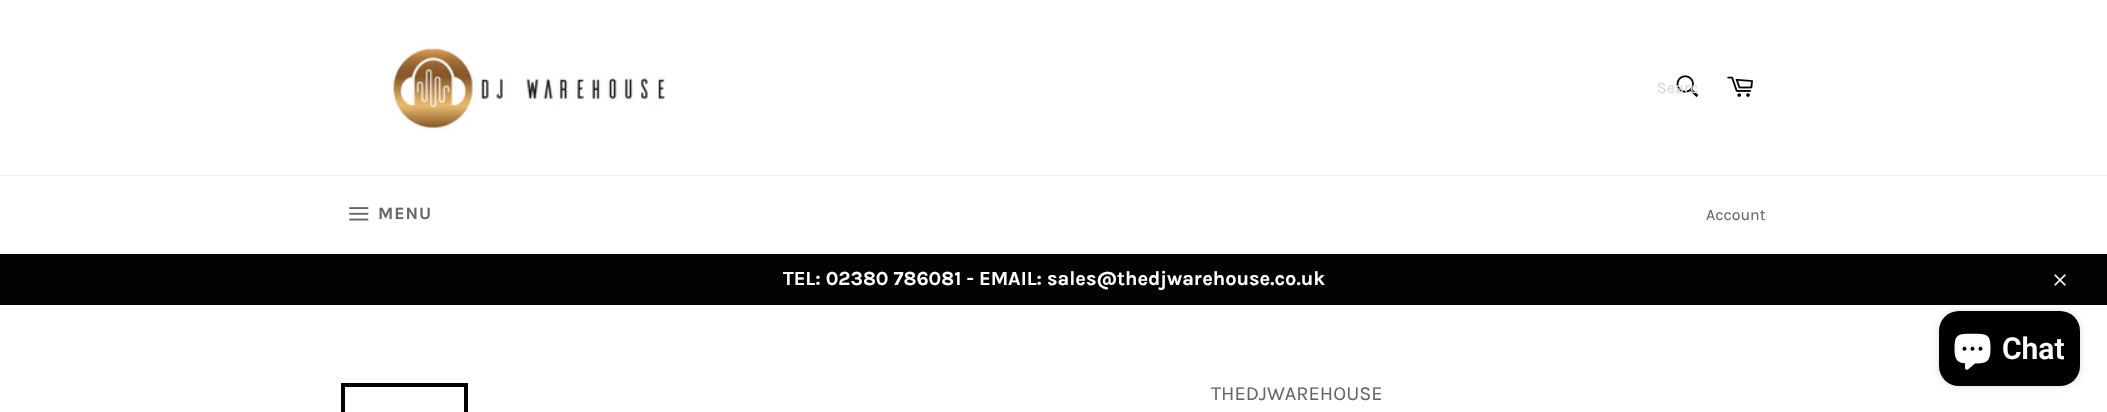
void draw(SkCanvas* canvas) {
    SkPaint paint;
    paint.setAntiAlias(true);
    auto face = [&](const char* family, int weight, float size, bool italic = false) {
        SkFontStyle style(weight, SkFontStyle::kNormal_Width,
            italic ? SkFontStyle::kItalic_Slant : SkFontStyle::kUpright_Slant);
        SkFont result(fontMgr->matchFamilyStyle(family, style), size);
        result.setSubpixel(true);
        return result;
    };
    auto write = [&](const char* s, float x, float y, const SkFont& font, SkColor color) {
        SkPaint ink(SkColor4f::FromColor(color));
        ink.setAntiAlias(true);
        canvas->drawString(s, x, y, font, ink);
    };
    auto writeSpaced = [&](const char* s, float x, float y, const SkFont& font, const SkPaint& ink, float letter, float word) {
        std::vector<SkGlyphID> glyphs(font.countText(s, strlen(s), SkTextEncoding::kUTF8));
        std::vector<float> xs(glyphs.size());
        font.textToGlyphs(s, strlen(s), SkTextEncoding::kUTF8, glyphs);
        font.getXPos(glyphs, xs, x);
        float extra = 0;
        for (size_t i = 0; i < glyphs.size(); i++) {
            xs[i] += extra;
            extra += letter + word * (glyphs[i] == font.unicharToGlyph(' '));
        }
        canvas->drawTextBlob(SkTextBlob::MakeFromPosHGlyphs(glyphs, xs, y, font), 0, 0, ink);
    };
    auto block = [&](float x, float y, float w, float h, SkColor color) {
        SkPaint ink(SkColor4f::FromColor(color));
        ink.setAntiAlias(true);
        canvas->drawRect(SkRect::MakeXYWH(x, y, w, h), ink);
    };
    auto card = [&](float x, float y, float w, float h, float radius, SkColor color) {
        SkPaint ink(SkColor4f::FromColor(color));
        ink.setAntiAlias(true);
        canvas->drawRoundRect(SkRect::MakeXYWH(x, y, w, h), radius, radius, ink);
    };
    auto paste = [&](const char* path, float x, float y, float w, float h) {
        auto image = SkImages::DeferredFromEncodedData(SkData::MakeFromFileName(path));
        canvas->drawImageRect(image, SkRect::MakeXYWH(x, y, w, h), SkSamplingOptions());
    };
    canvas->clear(SK_ColorWHITE);
    paste("pic1.png", 392, 45, 274, 87);
    paste("pic2.png", 1676, 75, 23, 22);
    canvas->save();
    canvas->clipRect(SkRect::MakeXYWH(1658, 79, 40, 19));
    auto kFont1 = face("Karla", 400, 16);
    write("Searc", 1657, 93, kFont1, SkColorSetRGB(215, 215, 215));
    canvas->restore();
    paste("pic3.png", 1727, 76, 26, 21);
    block(0, 175, 2107, 1, SkColorSetRGB(242, 242, 242));
    paste("pic4.png", 349, 207, 20, 14);
    auto kFont2 = face("Karla", 700, 17.5f);
    paint.setColor(SkColorSetRGB(102, 102, 102));
    writeSpaced("MENU", 378, 219, kFont2, paint, 1, 0);
    write("Account", 1706, 220, kFont1, SkColorSetRGB(102, 102, 102));
    block(0, 254, 2107, 51, SkColorSetRGB(3, 3, 3));
    auto kFont3 = face("Karla", 700, 20);
    write("TEL: 02380 786081 - EMAIL: sales@thedjwarehouse.co.uk", 783, 285, kFont3, SK_ColorWHITE);
    paste("pic5.png", 2054, 274, 12, 12);
    paint.setColor(SkColorSetARGB(38, 0, 0, 0));
    paint.setMaskFilter(SkMaskFilter::MakeBlur(kNormal_SkBlurStyle, 3));
    canvas->drawRoundRect(SkRect::MakeXYWH(1939, 311, 141, 75), 20, 20, paint);
    paint.setMaskFilter(nullptr);
    card(1939, 311, 141, 75, 20, SK_ColorBLACK);
    paste("pic6.png", 1954, 333, 37, 37);
    auto kFont4 = face("Roboto", 600, 30);
    write("Chat", 2002, 359, kFont4, SK_ColorWHITE);
    paint.setStyle(SkPaint::kStroke_Style);
    paint.setStrokeWidth(4);
    paint.setColor(SkColorSetRGB(3, 3, 3));
    canvas->drawRect(SkRect::MakeXYWH(343, 385, 123, 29), paint);
    auto kFont5 = face("Karla", 400, 20);
    write("THEDJWAREHOUSE", 1211, 400, kFont5, SkColorSetRGB(102, 102, 102));
}
